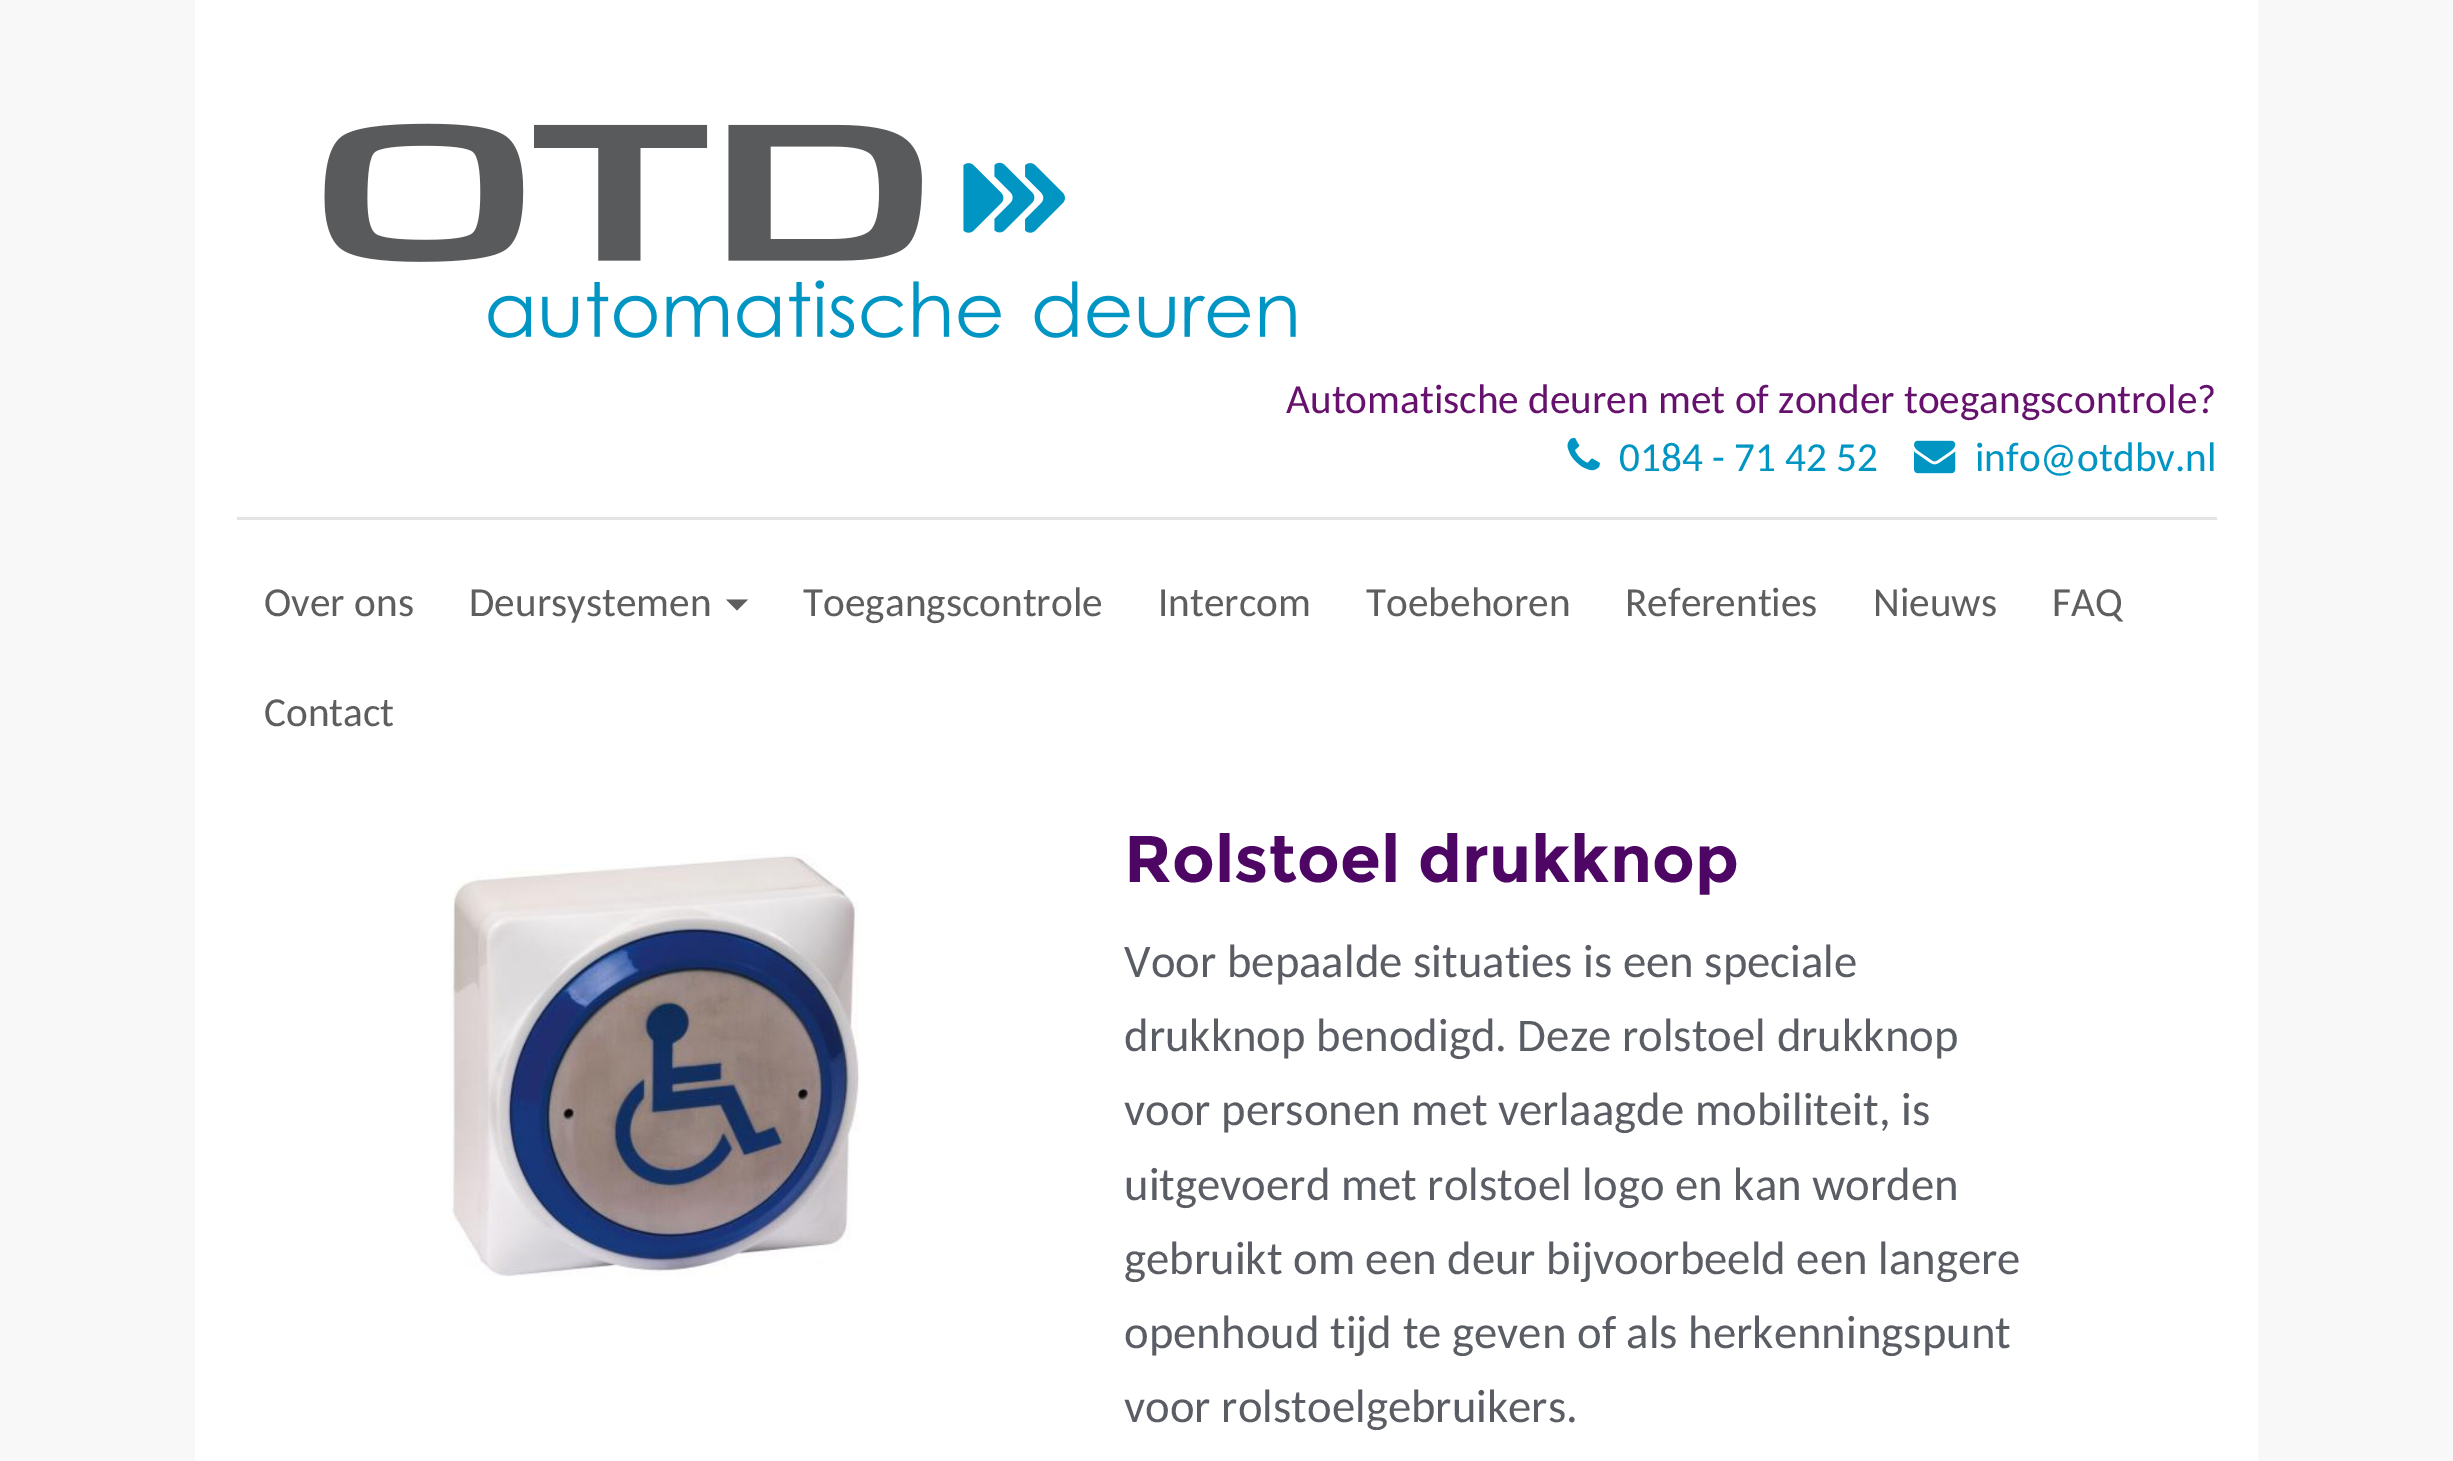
%!PS
<< /PageSize [2453 1461] >> setpagedevice
/rgb { 3 { 255 div 3 1 roll } repeat setrgbcolor } def
/font { [ exch dup neg 0 0 3 -1 roll 0 0 ] selectfont } def
/text { moveto show } def
/picture { 5 dict begin { /h /w /y /x /name } { exch def } forall
  gsave x y translate w h scale
  w h 8 [w 0 0 h 0 0] name (r) file false 3 colorimage grestore end } def
0 1461 translate 1 -1 scale
4 setmiterlimit
248 248 248 rgb
0 0 2453 1461 rectfill
255 255 255 rgb
195 0 2063 1461 rectfill
(img_01.rgb) 324 123 972 215 picture
228 228 228 rgb
237 517 1980 3 rectfill
(img_02.rgb) 1567 437 33 34 picture
(img_03.rgb) 1914 440 42 34 picture
94 94 94 rgb
726 599.5 moveto 22 0 rlineto -11 11 rlineto closepath fill
(img_04.rgb) 450 854 410 423 picture
/Carlito-Regular 41.25 font
102 17 109 rgb
(Automatische deuren met of zonder toegangscontrole?) 1286 413 text
0 149 195 rgb
(0184 - 71 42 52) 1619 471 text
(info@otdbv.nl) 1975 471 text
94 94 94 rgb
(Over ons) 264 616 text
(Deursystemen) 469 616 text
(Toegangscontrole) 803 616 text
(Intercom) 1158 616 text
(Toebehoren) 1366 616 text
(Referenties) 1625 616 text
(Nieuws) 1873 616 text
(FAQ) 2052 616 text
(Contact) 264 726 text
/Montserrat-Bold 66 font
77 6 100 rgb
(Rolstoel drukknop) 1124 882 text
/Carlito-Regular 46.75 font
90 93 100 rgb
(Voor bepaalde situaties is een speciale) 1124 977 text
(drukknop benodigd. Deze rolstoel drukknop) 1124 1051 text
(voor personen met verlaagde mobiliteit, is) 1124 1125 text
(uitgevoerd met rolstoel logo en kan worden) 1124 1200 text
(gebruikt om een deur bijvoorbeeld een langere) 1124 1274 text
(openhoud tijd te geven of als herkenningspunt) 1124 1348 text
(voor rolstoelgebruikers.) 1124 1422 text
showpage
